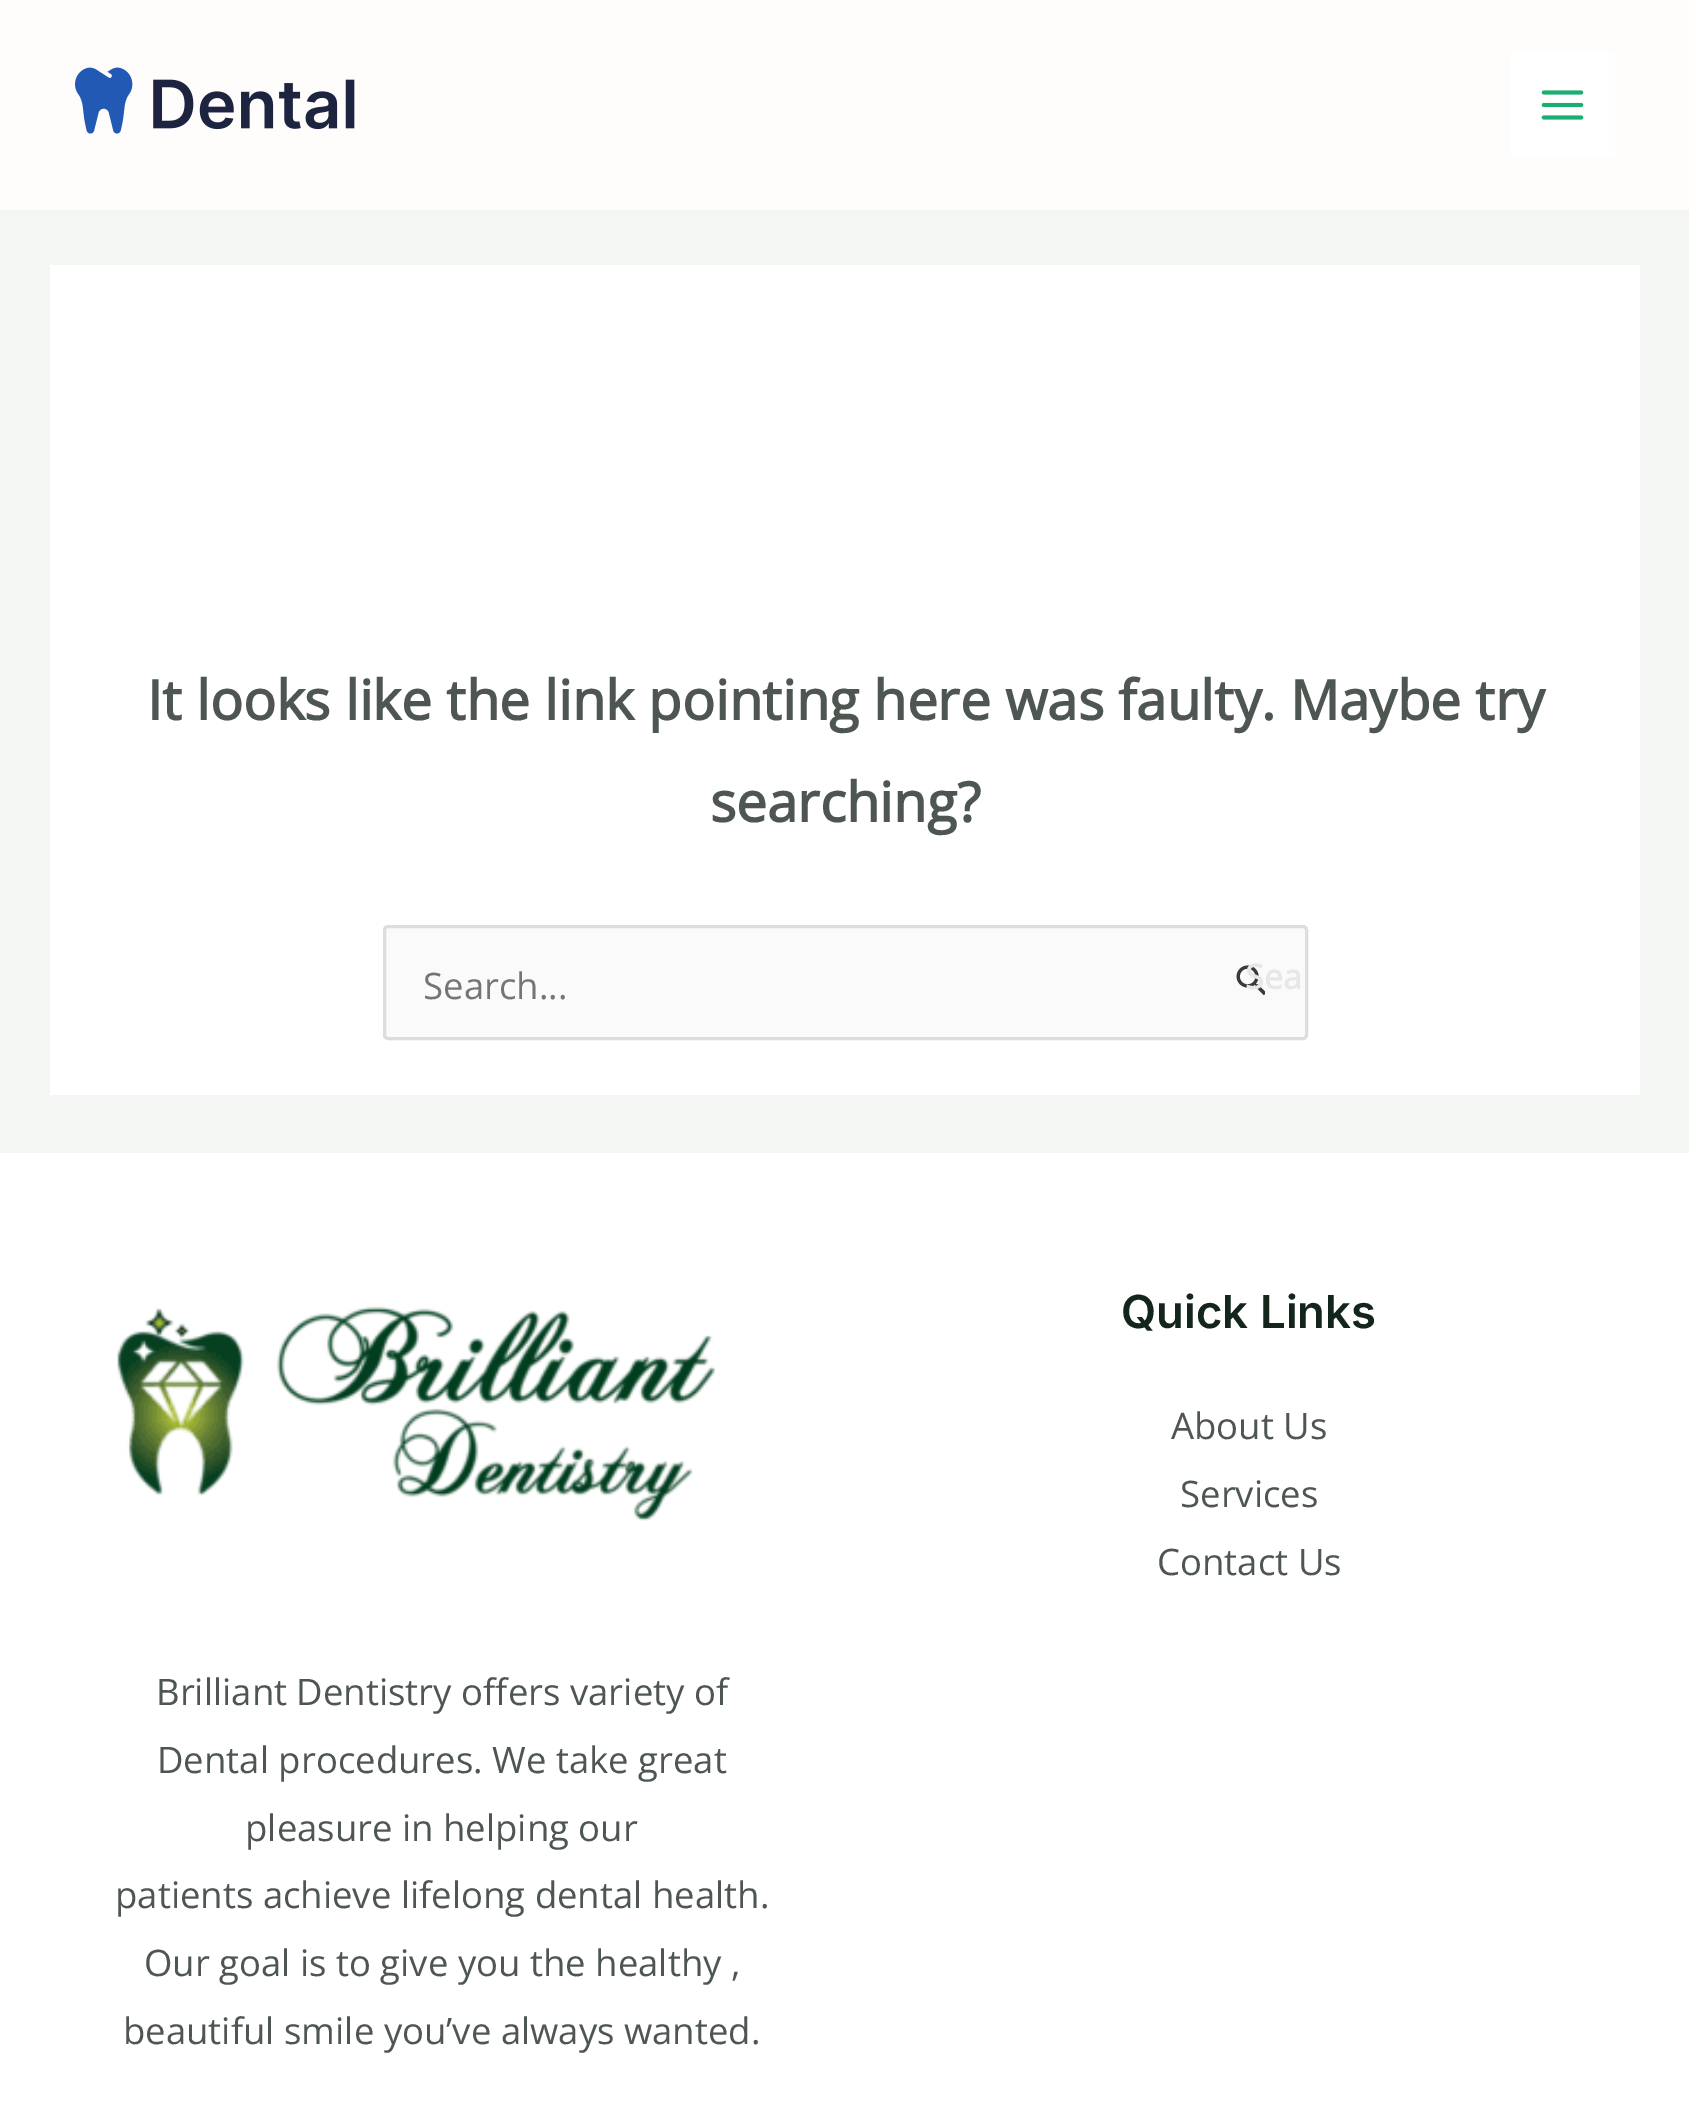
%!PS
<< /PageSize [1689 2114] >> setpagedevice
/rgb { 3 { 255 div 3 1 roll } repeat setrgbcolor } def
/font { [ exch dup neg 0 0 3 -1 roll 0 0 ] selectfont } def
/text { moveto show } def
/roundrect { 5 dict begin { /r /h /w /y /x } { exch def } forall
  x r add y moveto x w add y 2 copy h add r arct x w add y h add x 1 index r arct
  x y h add x y r arct x y 2 copy exch w add exch r arct closepath end } def
/picture { 5 dict begin { /h /w /y /x /name } { exch def } forall
  gsave x y translate w h scale
  w h 8 [w 0 0 h 0 0] name (r) file false 3 colorimage grestore end } def
0 2114 translate 1 -1 scale
4 setmiterlimit
244 246 244 rgb
0 0 1689 2114 rectfill
255 252 252 rgb
0 0 1689 210 rectfill
(img_01.rgb) 75 67 280 67 picture
255 255 255 rgb
1510 53 105 105 5 roundrect fill
(img_02.rgb) 1541 90 43 30 picture
50 265 1590 830 rectfill
250 250 250 rgb
384.5 926.5 922 112 3.5 roundrect gsave fill grestore
221 221 221 rgb
3 setlinewidth
stroke
(img_03.rgb) 1236 965 29 31 picture
255 255 255 rgb
0 1153 1689 961 rectfill
(img_04.rgb) 117 1306 598 215 picture
/OpenSans-Bold 54.75 font
78 86 82 rgb
(It looks like the link pointing here was faulty. Maybe try) 147 720 text
(searching?) 710 822 text
/OpenSans-Regular 36.5 font
117 117 117 rgb
(Search...) 423 999 text
/OpenSans-Bold 34 font
231 231 231 rgb
(Sea) 1245 989 text
/Inter-SemiBold 45.5 font
20 38 28 rgb
(Quick Links) 1121 1328 text
/OpenSans-Regular 36.5 font
78 86 82 rgb
(About Us) 1171 1439 text
(Services) 1180 1507 text
(Contact Us) 1157 1575 text
(Brilliant Dentistry offers variety of) 156 1705 text
(Dental procedures. We take great) 157 1773 text
(pleasure in helping our) 245 1841 text
(patients achieve lifelong dental health.) 115 1908 text
(Our goal is to give you the healthy ,) 144 1976 text
(beautiful smile you’ve always wanted.) 123 2044 text
showpage
